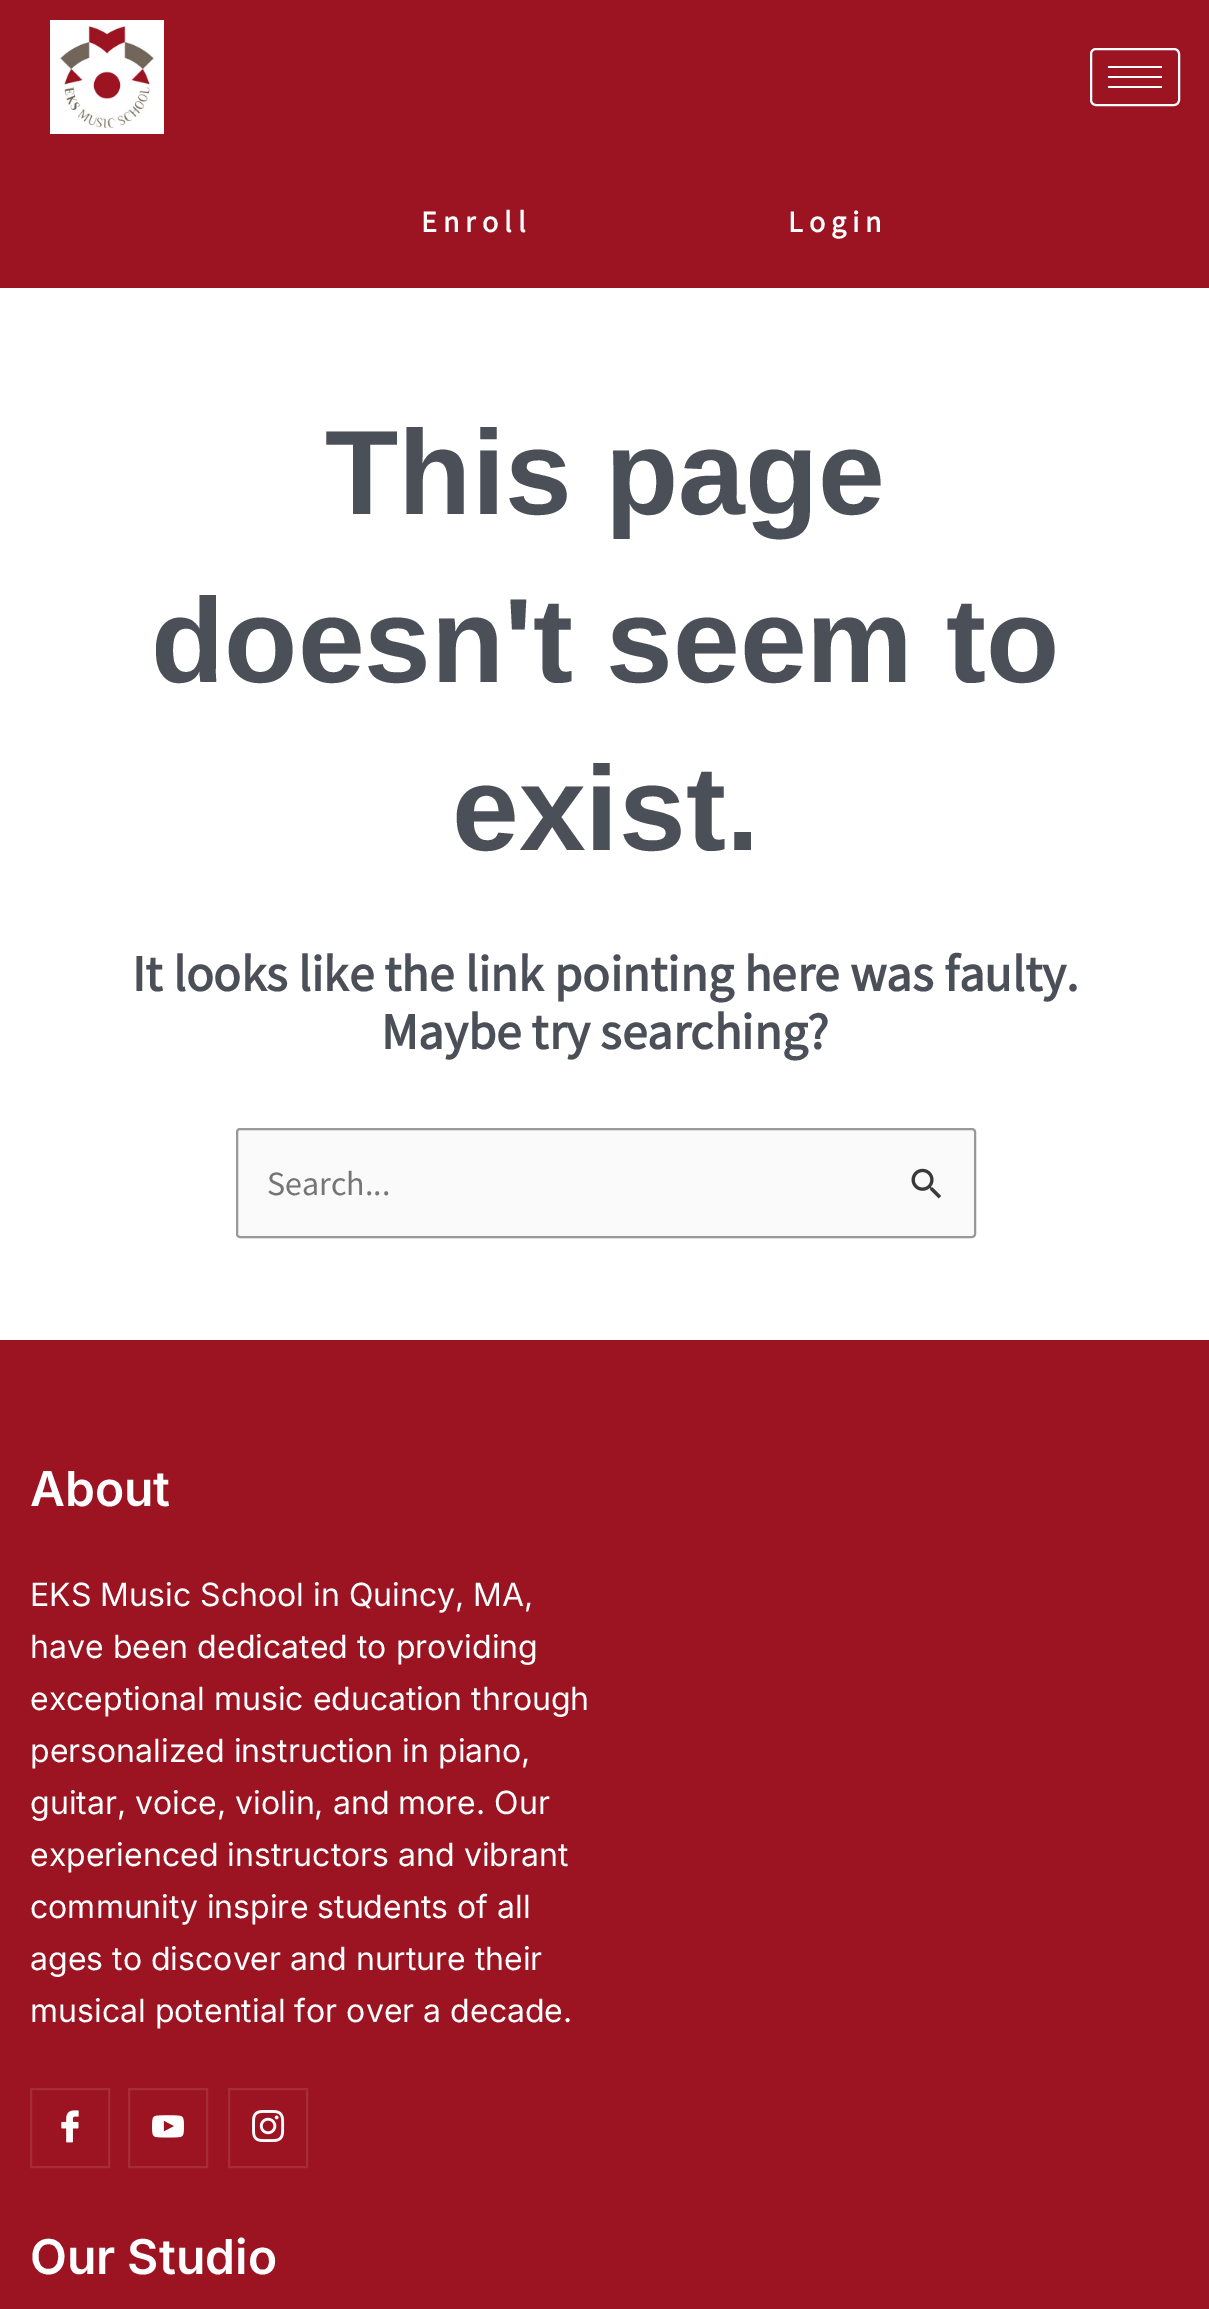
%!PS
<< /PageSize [1209 2309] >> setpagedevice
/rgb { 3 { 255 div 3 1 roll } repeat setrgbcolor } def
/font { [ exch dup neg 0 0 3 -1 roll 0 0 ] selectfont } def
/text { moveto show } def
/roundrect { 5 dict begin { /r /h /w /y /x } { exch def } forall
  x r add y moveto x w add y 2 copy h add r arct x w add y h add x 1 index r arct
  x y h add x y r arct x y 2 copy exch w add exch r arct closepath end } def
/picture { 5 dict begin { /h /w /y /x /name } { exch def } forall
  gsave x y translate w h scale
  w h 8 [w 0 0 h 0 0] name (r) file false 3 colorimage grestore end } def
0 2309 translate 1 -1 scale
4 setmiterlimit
255 255 255 rgb
0 0 1209 2309 rectfill
156 20 34 rgb
0 0 1209 288 rectfill
(img_01.rgb) 50 20 114 114 picture
255 255 255 rgb
2 setlinewidth
1091 49 88 56 5 roundrect stroke
1108 66 54 2 rectfill
1108 76 54 2 rectfill
1108 86 54 2 rectfill
250 250 250 rgb
237 1129 738 108 3 roundrect gsave fill grestore
152 152 152 rgb
stroke
(img_02.rgb) 911 1168 31 31 picture
156 20 34 rgb
0 1340 1209 969 rectfill
166 44 56 rgb
31 2089 78 78 rectstroke
(img_03.rgb) 61 2110 18 33 picture
129 2089 78 78 rectstroke
(img_04.rgb) 152 2115 32 23 picture
229 2089 78 78 rectstroke
(img_05.rgb) 252 2110 33 32 picture
/SourceSansPro-Bold 30 font
255 255 255 rgb
421 232 moveto 6 0 (Enroll) ashow
788 232 moveto 6 0 (Login) ashow
/LiberationSans-Bold 120 font
75 79 88 rgb
(This page) 325 514 text
(doesn't seem to) 151 682 text
(exist.) 452 850 text
/SourceSansPro-Bold 51 font
(It looks like the link pointing here was faulty.) 132 991 text
(Maybe try searching?) 381 1049 text
/SourceSansPro-Regular 34 font
117 117 117 rgb
(Search...) 267 1195 text
/Inter-SemiBold 48 font
255 255 255 rgb
(About) 30 1506 text
/Inter-Regular 32 font
(EKS Music School in Quincy, MA,) 30 1606 text
(have been dedicated to providing) 30 1658 text
(exceptional music education through) 30 1710 text
(personalized instruction in piano,) 30 1762 text
(guitar, voice, violin, and more. Our) 30 1814 text
(experienced instructors and vibrant) 30 1866 text
(community inspire students of all) 30 1918 text
(ages to discover and nurture their) 30 1970 text
(musical potential for over a decade.) 30 2022 text
/Inter-SemiBold 48 font
(Our Studio) 30 2274 text
showpage
